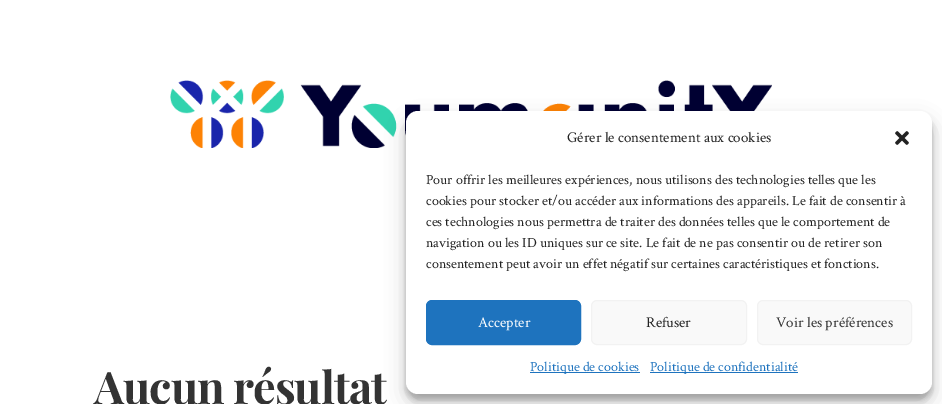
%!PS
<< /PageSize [942 404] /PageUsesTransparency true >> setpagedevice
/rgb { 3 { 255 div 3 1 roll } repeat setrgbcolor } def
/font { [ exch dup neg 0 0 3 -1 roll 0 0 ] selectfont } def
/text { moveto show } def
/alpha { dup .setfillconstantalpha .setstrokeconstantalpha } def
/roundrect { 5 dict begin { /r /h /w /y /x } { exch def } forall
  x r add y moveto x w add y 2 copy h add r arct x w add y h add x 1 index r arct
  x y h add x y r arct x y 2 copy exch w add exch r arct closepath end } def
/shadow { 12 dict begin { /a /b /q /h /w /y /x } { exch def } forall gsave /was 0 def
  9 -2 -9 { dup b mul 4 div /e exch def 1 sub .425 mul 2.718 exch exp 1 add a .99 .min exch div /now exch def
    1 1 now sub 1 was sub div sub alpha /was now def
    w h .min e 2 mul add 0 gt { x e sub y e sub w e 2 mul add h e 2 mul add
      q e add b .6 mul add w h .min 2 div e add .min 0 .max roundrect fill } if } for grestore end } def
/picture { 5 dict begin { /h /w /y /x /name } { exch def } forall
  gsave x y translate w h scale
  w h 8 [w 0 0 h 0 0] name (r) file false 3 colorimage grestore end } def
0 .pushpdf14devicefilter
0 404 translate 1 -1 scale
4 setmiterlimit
255 255 255 rgb
0 0 942 404 rectfill
(img_02.rgb) 170 80 602 68 picture
0 0 0 rgb
406 117 526 283 12 3 0.23 shadow
406 121 526 283 12 10 0.19 shadow
255 255 255 rgb
406 111 526 283 12 roundrect fill
(img_01.rgb) 895 131 14 14 picture
30 115 190 rgb
426.5 300.5 154 44 5.5 roundrect gsave fill grestore
stroke
249 249 249 rgb
591.5 300.5 155 44 5.5 roundrect gsave fill grestore
242 242 242 rgb
stroke
249 249 249 rgb
757.5 300.5 154 44 5.5 roundrect gsave fill grestore
242 242 242 rgb
stroke
30 115 190 rgb
530 372 110 1 rectfill
650 372 148 1 rectfill
/CrimsonText-Regular 15 font
34 34 34 rgb
(Gérer le consentement aux cookies) 567 142 text
/CrimsonText-Regular 14 font
(Pour offrir les meilleures expériences, nous utilisons des technologies telles que les) 426 184 text
(cookies pour stocker et/ou accéder aux informations des appareils. Le fait de consentir à) 426 205 text
(ces technologies nous permettra de traiter des données telles que le comportement de) 426 226 text
(navigation ou les ID uniques sur ce site. Le fait de ne pas consentir ou de retirer son) 426 247 text
(consentement peut avoir un effet négatif sur certaines caractéristiques et fonctions.) 426 268 text
/CrimsonText-Regular 15 font
255 255 255 rgb
(Accepter) 478 327 text
34 34 34 rgb
(Refuser) 646 327 text
51 51 51 rgb
(Voir les préférences) 776 327 text
/CrimsonText-Regular 14 font
30 115 190 rgb
(Politique de cookies) 530 371 text
(Politique de confidentialité) 650 371 text
/PlayfairDisplay-Bold 45 font
51 51 51 rgb
94 404 moveto -1 0 (Aucun résultat) ashow
.poppdf14devicefilter showpage
